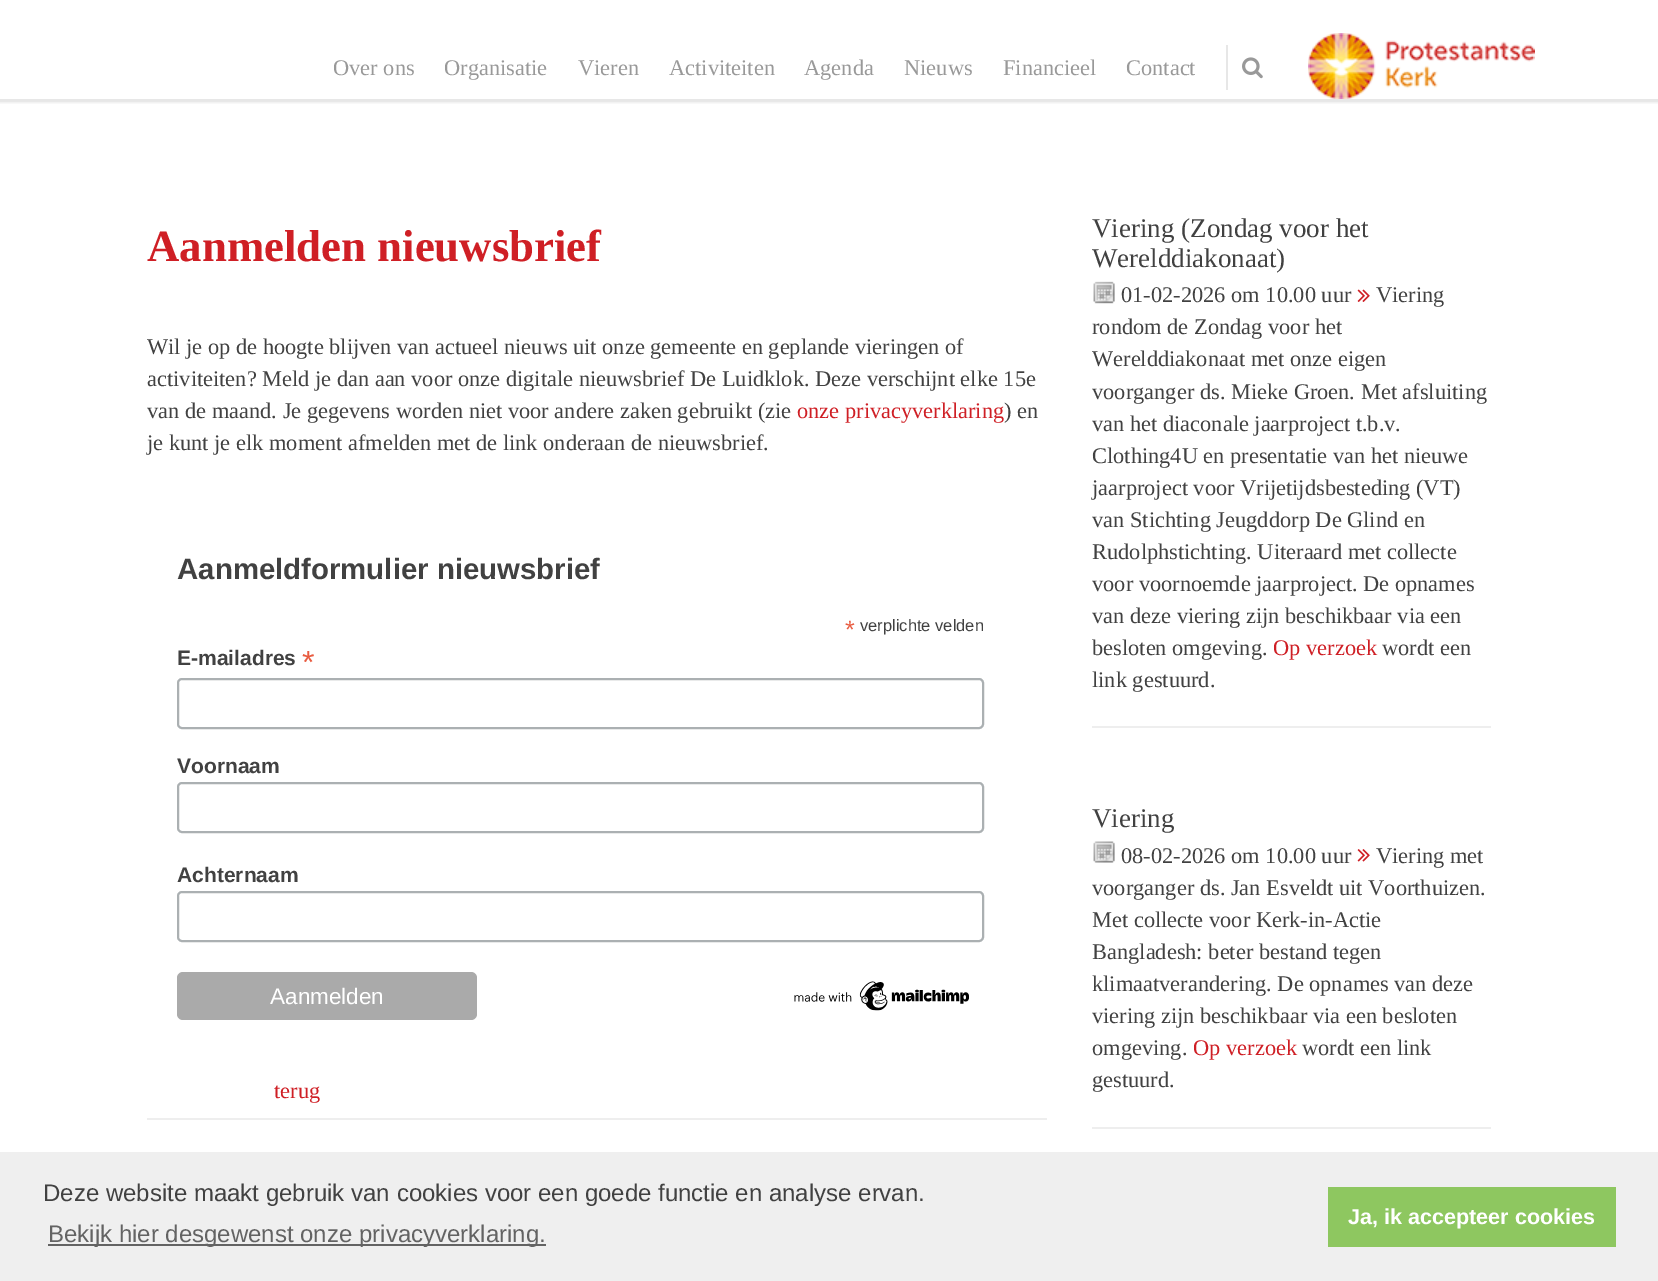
%!PS
<< /PageSize [1658 1281] /PageUsesTransparency true >> setpagedevice
/rgb { 3 { 255 div 3 1 roll } repeat setrgbcolor } def
/font { [ exch dup neg 0 0 3 -1 roll 0 0 ] selectfont } def
/text { moveto show } def
/alpha { dup .setfillconstantalpha .setstrokeconstantalpha } def
/roundrect { 5 dict begin { /r /h /w /y /x } { exch def } forall
  x r add y moveto x w add y 2 copy h add r arct x w add y h add x 1 index r arct
  x y h add x y r arct x y 2 copy exch w add exch r arct closepath end } def
/shadow { 12 dict begin { /a /b /q /h /w /y /x } { exch def } forall gsave /was 0 def
  9 -2 -9 { dup b mul 4 div /e exch def 1 sub .425 mul 2.718 exch exp 1 add a .99 .min exch div /now exch def
    1 1 now sub 1 was sub div sub alpha /was now def
    w h .min e 2 mul add 0 gt { x e sub y e sub w e 2 mul add h e 2 mul add
      q e add b .6 mul add w h .min 2 div e add .min 0 .max roundrect fill } if } for grestore end } def
/picture { 5 dict begin { /h /w /y /x /name } { exch def } forall
  gsave x y translate w h scale
  w h 8 [w 0 0 h 0 0] name (r) file false 3 colorimage grestore end } def
0 .pushpdf14devicefilter
0 1281 translate 1 -1 scale
4 setmiterlimit
255 255 255 rgb
0 0 1658 1281 rectfill
gsave
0 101 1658 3 rectclip
0 0 0 rgb
0 0 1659 101 0 2 0.22 shadow
grestore
231 231 231 rgb
0 99 1658 2 rectfill
1226 45 2 45 rectfill
(img_01.rgb) 1242 57 21 22 picture
(img_02.rgb) 1308 33 227 66 picture
238 238 238 rgb
147 1118 900 2 rectfill
171 176 178 rgb
2 setlinewidth
178 679 805 49 4 roundrect stroke
178 783 805 49 4 roundrect stroke
178 892 805 49 4 roundrect stroke
170 170 170 rgb
177 972 300 48 6 roundrect fill
(img_03.rgb) 794 981 175 30 picture
(img_04.rgb) 1093 281 22 23 picture
(img_05.rgb) 1357 289 13 13 picture
238 238 238 rgb
1092 726 399 2 rectfill
(img_06.rgb) 1093 841 22 22 picture
(img_07.rgb) 1357 849 13 13 picture
1092 1127 399 2 rectfill
239 239 239 rgb
0 1152 1658 129 rectfill
99 99 99 rgb
48 1244 498 2 rectfill
142 199 96 rgb
1328 1187 288 60 rectfill
/LiberationSerif-Regular 22.4 font
153 153 153 rgb
(Over ons) 333 75 text
(Organisatie) 444 75 text
(Vieren) 578 75 text
(Activiteiten) 669 75 text
(Agenda) 804 75 text
(Nieuws) 904 75 text
(Financieel) 1003 75 text
(Contact) 1126 75 text
/LiberationSerif-Bold 44.8 font
207 31 37 rgb
(Aanmelden nieuwsbrief) 147 261 text
/LiberationSerif-Regular 22.4 font
65 65 65 rgb
(Wil je op de hoogte blijven van actueel nieuws uit onze gemeente en geplande vieringen of) 147 354 text
(activiteiten? Meld je dan aan voor onze digitale nieuwsbrief De Luidklok. Deze verschijnt elke 15e) 147 386 text
(van de maand. Je gegevens worden niet voor andere zaken gebruikt \(zie) 147 418 text
207 31 37 rgb
(onze privacyverklaring) 797 418 text
65 65 65 rgb
(\) en) 1004 418 text
(je kunt je elk moment afmelden met de link onderaan de nieuwsbrief.) 147 450 text
/LiberationSans-Bold 29.4 font
(Aanmeldformulier nieuwsbrief) 177 579 text
/LiberationSans-Regular 25 font
232 92 65 rgb
(*) 845 638 text
/LiberationSans-Regular 16.5 font
65 65 65 rgb
(verplichte velden) 860 631 text
/LiberationSans-Bold 21 font
(E-mailadres) 177 665 text
/LiberationSans-Regular 32 font
232 92 65 rgb
(*) 302 673 text
/LiberationSans-Bold 21 font
65 65 65 rgb
(Voornaam) 177 773 text
(Achternaam) 177 882 text
/LiberationSans-Regular 22.5 font
255 255 255 rgb
(Aanmelden) 270 1004 text
/LiberationSerif-Regular 22.4 font
207 31 37 rgb
(terug) 274 1098 text
/LiberationSerif-Regular 27 font
65 65 65 rgb
(Viering \(Zondag voor het) 1092 237 text
(Werelddiakonaat\)) 1092 267 text
/LiberationSerif-Regular 22.4 font
(01-02-2026 om 10.00 uur) 1121 302 text
(Viering) 1376 302 text
(rondom de Zondag voor het) 1092 334 text
(Werelddiakonaat met onze eigen) 1092 366 text
(voorganger ds. Mieke Groen. Met afsluiting) 1092 399 text
(van het diaconale jaarproject t.b.v.) 1092 431 text
(Clothing4U en presentatie van het nieuwe) 1092 463 text
(jaarproject voor Vrijetijdsbesteding \(VT\)) 1092 495 text
(van Stichting Jeugddorp De Glind en) 1092 527 text
(Rudolphstichting. Uiteraard met collecte) 1092 559 text
(voor voornoemde jaarproject. De opnames) 1092 591 text
(van deze viering zijn beschikbaar via een) 1092 623 text
(besloten omgeving.) 1092 655 text
207 31 37 rgb
(Op verzoek) 1273 655 text
65 65 65 rgb
(wordt een) 1382 655 text
(link gestuurd.) 1092 687 text
/LiberationSerif-Regular 27 font
(Viering) 1092 827 text
/LiberationSerif-Regular 22.4 font
(08-02-2026 om 10.00 uur) 1121 863 text
(Viering met) 1376 863 text
(voorganger ds. Jan Esveldt uit Voorthuizen.) 1092 895 text
(Met collecte voor Kerk-in-Actie) 1092 927 text
(Bangladesh: beter bestand tegen) 1092 959 text
(klimaatverandering. De opnames van deze) 1092 991 text
(viering zijn beschikbaar via een besloten) 1092 1023 text
(omgeving.) 1092 1055 text
207 31 37 rgb
(Op verzoek) 1193 1055 text
65 65 65 rgb
(wordt een link) 1302 1055 text
(gestuurd.) 1092 1087 text
/LiberationSans-Regular 24 font
(Deze website maakt gebruik van cookies voor een goede functie en analyse ervan.) 43 1201 text
99 99 99 rgb
(Bekijk hier desgewenst onze privacyverklaring.) 48 1242 text
/LiberationSans-Bold 21.6 font
255 255 255 rgb
(Ja, ik accepteer cookies) 1348 1224 text
.poppdf14devicefilter showpage
